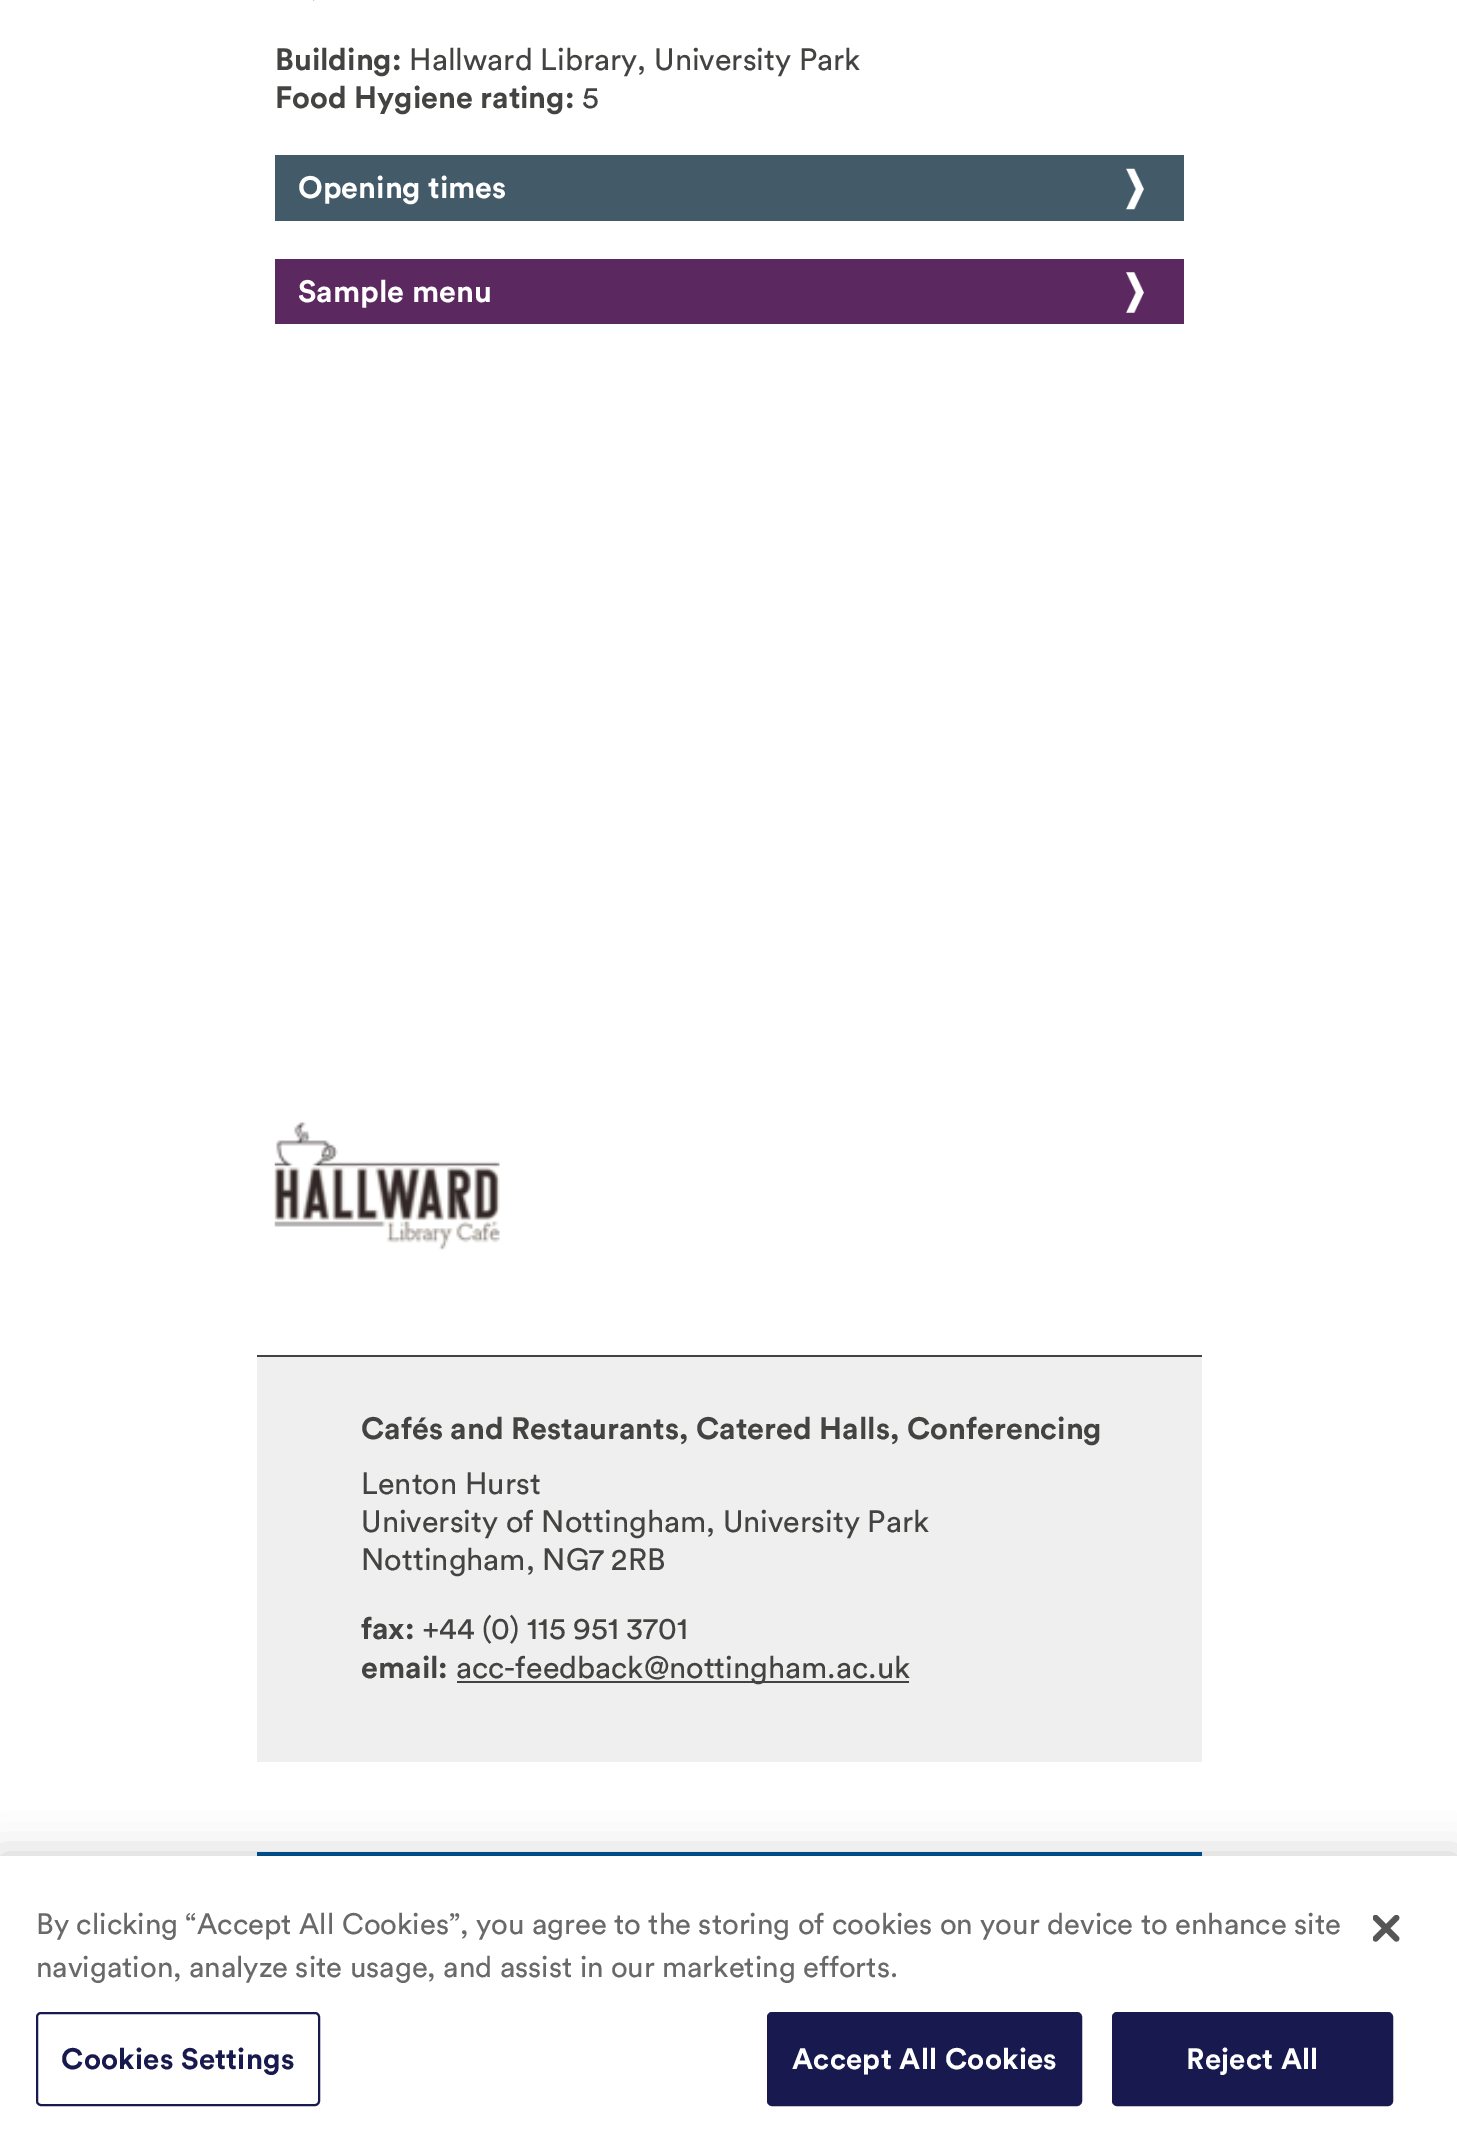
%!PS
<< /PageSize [1457 2149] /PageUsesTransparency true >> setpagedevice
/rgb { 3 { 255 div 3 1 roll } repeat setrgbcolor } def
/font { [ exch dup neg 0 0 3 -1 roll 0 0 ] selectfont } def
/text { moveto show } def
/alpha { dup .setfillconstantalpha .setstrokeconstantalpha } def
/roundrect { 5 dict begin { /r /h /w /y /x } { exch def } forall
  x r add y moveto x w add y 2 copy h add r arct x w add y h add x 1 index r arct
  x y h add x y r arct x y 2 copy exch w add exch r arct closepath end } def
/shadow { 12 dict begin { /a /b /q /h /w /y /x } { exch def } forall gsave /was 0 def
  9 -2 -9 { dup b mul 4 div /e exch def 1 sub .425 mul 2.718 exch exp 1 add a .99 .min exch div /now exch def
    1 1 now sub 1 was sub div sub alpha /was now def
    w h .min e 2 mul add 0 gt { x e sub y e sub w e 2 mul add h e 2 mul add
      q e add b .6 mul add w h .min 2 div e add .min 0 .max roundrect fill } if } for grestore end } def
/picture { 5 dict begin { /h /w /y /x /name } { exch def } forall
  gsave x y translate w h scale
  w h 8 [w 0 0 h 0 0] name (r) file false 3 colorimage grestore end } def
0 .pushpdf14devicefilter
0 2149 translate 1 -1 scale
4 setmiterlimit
255 255 255 rgb
0 0 1457 2149 rectfill
(img_01.rgb) 313 0 2 1 picture
67 90 105 rgb
275 155 909 66 rectfill
(img_02.rgb) 1126 168 18 42 picture
91 41 96 rgb
275 259 909 65 rectfill
(img_03.rgb) 1126 272 18 41 picture
(img_04.rgb) 274 1122 226 128 picture
239 239 239 rgb
257 1357 945 405 rectfill
67 67 65 rgb
257 1355 945 2 rectfill
457 1681 452 2 rectfill
0 85 151 rgb
257 1852 945 4 rectfill
0 0 0 rgb
0 1856 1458 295 0 20 0.2 shadow
255 255 255 rgb
0 1856 1457 293 rectfill
24 25 79 rgb
2 setlinewidth
37 2013 282 92 4 roundrect stroke
768 2013 313 92 4 roundrect gsave fill grestore
stroke
1113 2013 279 92 4 roundrect gsave fill grestore
stroke
(img_05.rgb) 1373 1915 27 27 picture
/Circular-Bold 30.6 font
67 67 65 rgb
(Building:) 275 70 text
/Circular-Regular 30.6 font
(Hallward Library, University Park) 409 70 text
/Circular-Bold 30.6 font
(Food Hygiene rating:) 275 108 text
/Circular-Regular 30.6 font
(5) 582 108 text
/Circular-Bold 30.6 font
255 255 255 rgb
(Opening times) 298 198 text
(Sample menu) 298 302 text
67 67 65 rgb
(Cafés and Restaurants, Catered Halls, Conferencing) 361 1439 text
/Circular-Regular 30.6 font
(Lenton Hurst) 361 1494 text
(University of Nottingham, University Park) 361 1532 text
(Nottingham, NG7 2RB) 361 1570 text
/Circular-Bold 30.6 font
(fax:) 361 1639 text
/Circular-Regular 30.6 font
(+44 \(0\) 115 951 3701) 422 1639 text
/Circular-Bold 30.6 font
(email:) 361 1678 text
/Circular-Regular 30.6 font
(acc-feedback@nottingham.ac.uk) 456 1678 text
/Circular-Regular 29.25 font
105 105 105 rgb
(By clicking “Accept All Cookies”, you agree to the storing of cookies on your device to enhance site) 36 1934 text
(navigation, analyze site usage, and assist in our marketing efforts.) 36 1977 text
/Circular-Bold 29.25 font
24 25 79 rgb
61 2069 moveto 0.25 0 (Cookies Settings) ashow
255 255 255 rgb
792 2069 moveto 0.25 0 (Accept All Cookies) ashow
1186 2069 moveto 0.25 0 (Reject All) ashow
.poppdf14devicefilter showpage
